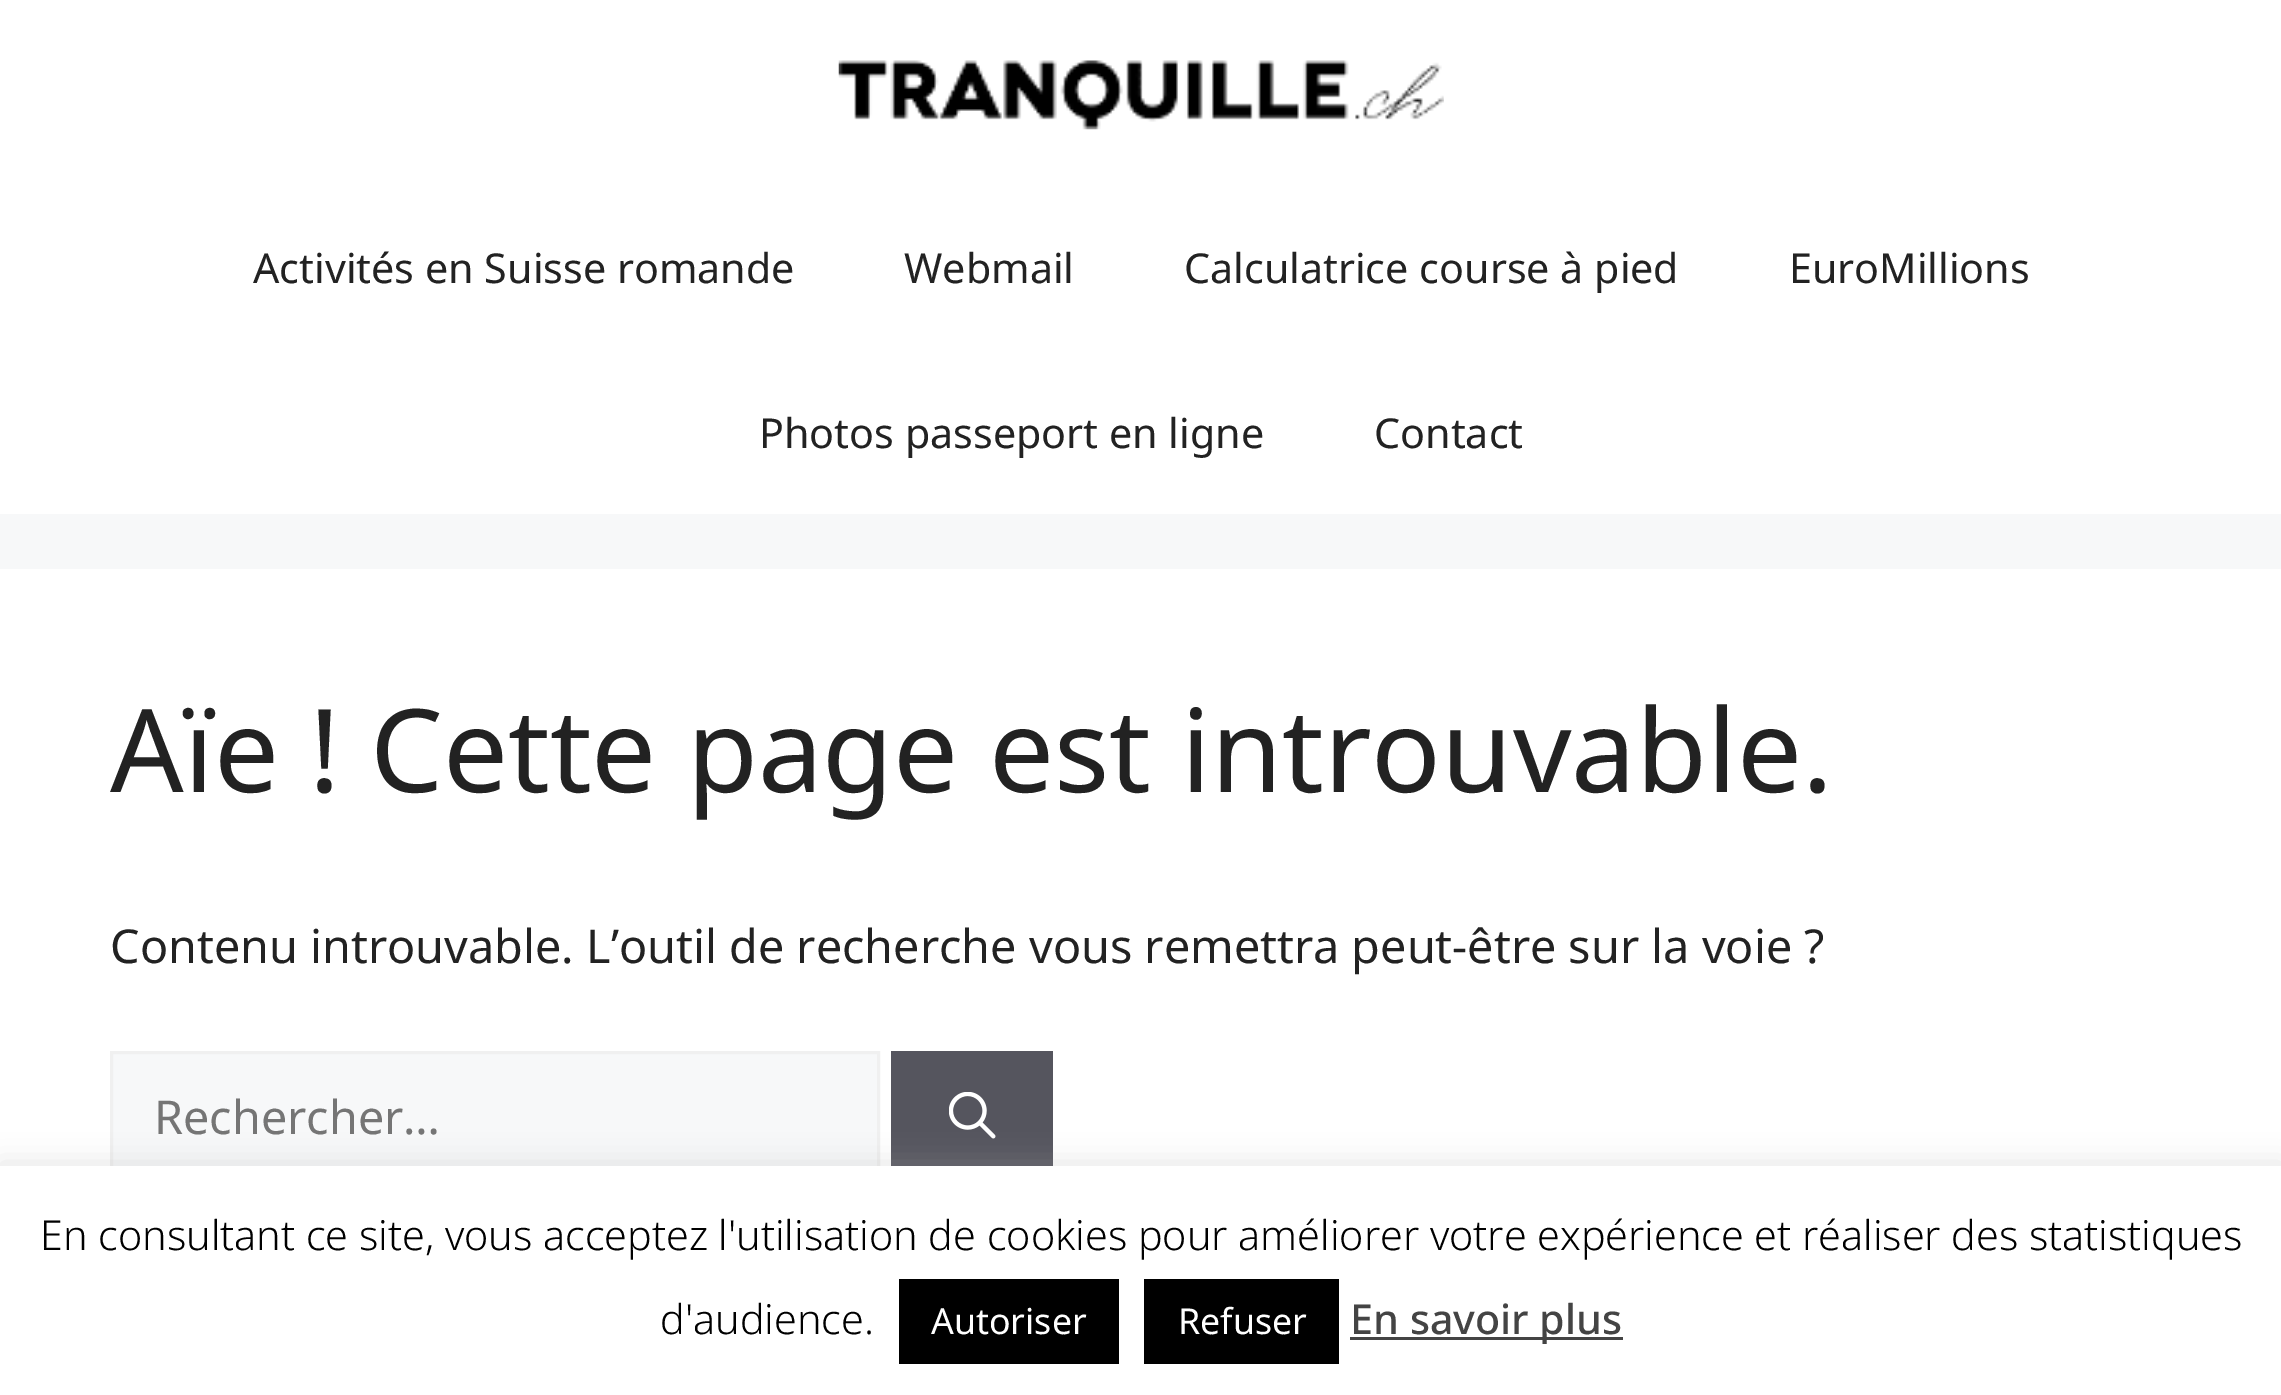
%!PS
<< /PageSize [2281 1395] /PageUsesTransparency true >> setpagedevice
/rgb { 3 { 255 div 3 1 roll } repeat setrgbcolor } def
/font { [ exch dup neg 0 0 3 -1 roll 0 0 ] selectfont } def
/text { moveto show } def
/alpha { dup .setfillconstantalpha .setstrokeconstantalpha } def
/roundrect { 5 dict begin { /r /h /w /y /x } { exch def } forall
  x r add y moveto x w add y 2 copy h add r arct x w add y h add x 1 index r arct
  x y h add x y r arct x y 2 copy exch w add exch r arct closepath end } def
/shadow { 12 dict begin { /a /b /q /h /w /y /x } { exch def } forall gsave /was 0 def
  9 -2 -9 { dup b mul 4 div /e exch def 1 sub .425 mul 2.718 exch exp 1 add a .99 .min exch div /now exch def
    1 1 now sub 1 was sub div sub alpha /was now def
    w h .min e 2 mul add 0 gt { x e sub y e sub w e 2 mul add h e 2 mul add
      q e add b .6 mul add w h .min 2 div e add .min 0 .max roundrect fill } if } for grestore end } def
/picture { 5 dict begin { /h /w /y /x /name } { exch def } forall
  gsave x y translate w h scale
  w h 8 [w 0 0 h 0 0] name (r) file false 3 colorimage grestore end } def
0 .pushpdf14devicefilter
0 1395 translate 1 -1 scale
4 setmiterlimit
247 248 249 rgb
0 0 2281 1395 rectfill
255 255 255 rgb
0 0 2281 514 rectfill
(img_01.rgb) 838 60 606 70 picture
0 569 2281 597 rectfill
247 248 249 rgb
113 1054 764 112 rectfill
240 240 240 rgb
3 setlinewidth
111.5 1052.5 767 129 rectstroke
85 85 94 rgb
891 1051 162 115 rectfill
(img_02.rgb) 949 1092 47 47 picture
172 171 171 rgb
0 1163 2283 231 0 14 0.3 shadow
255 255 255 rgb
0 1166 2281 229 rectfill
0 0 0 rgb
899 1279 220 85 rectfill
1144 1279 195 85 rectfill
68 68 68 rgb
1350 1337 273 3 rectfill
/NotoSans-Regular 41.25 font
34 34 34 rgb
(Activités en Suisse romande) 253 283 text
(Webmail) 904 283 text
(Calculatrice course à pied) 1184 283 text
(EuroMillions) 1789 283 text
(Photos passeport en ligne) 759 448 text
(Contact) 1374 448 text
/NotoSans-Regular 115.5 font
(Aïe ! Cette page est introuvable.) 110 792 text
/NotoSans-Regular 46.75 font
(Contenu introuvable. L’outil de recherche vous remettra peut-être sur la voie ?) 110 963 text
117 117 117 rgb
(Rechercher…) 154 1134 text
/NotoSans-Light 41.25 font
0 0 0 rgb
(En consultant ce site, vous acceptez l'utilisation de cookies pour améliorer votre expérience et réaliser des statistiques) 40 1250 text
(d'audience.) 660 1334 text
/NotoSans-Regular 35.75 font
255 255 255 rgb
(Autoriser) 931 1334 text
(Refuser) 1178 1334 text
/NotoSans-Medium 41.25 font
68 68 68 rgb
(En savoir plus) 1350 1334 text
.poppdf14devicefilter showpage
